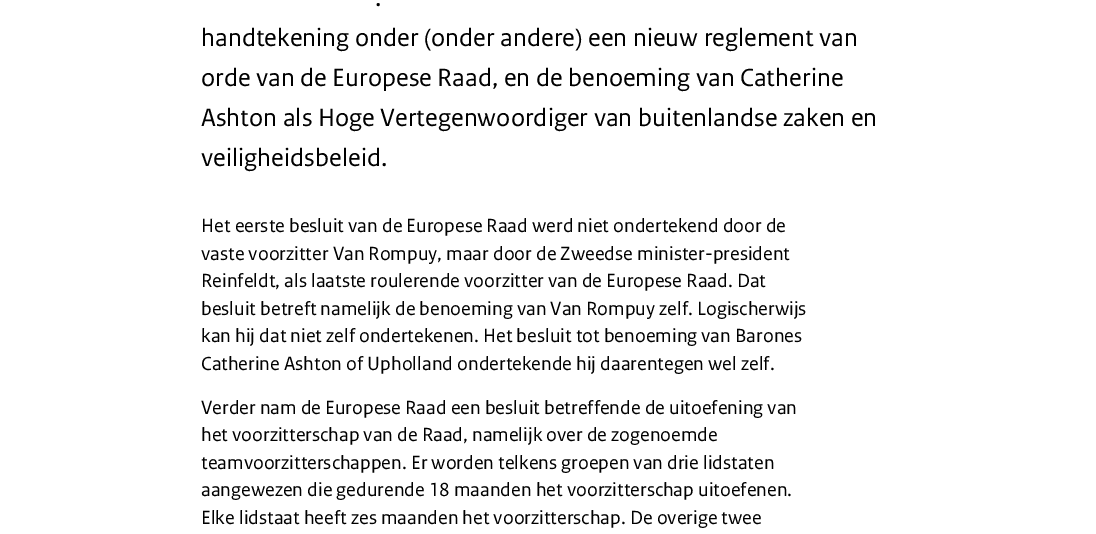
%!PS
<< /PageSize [1096 534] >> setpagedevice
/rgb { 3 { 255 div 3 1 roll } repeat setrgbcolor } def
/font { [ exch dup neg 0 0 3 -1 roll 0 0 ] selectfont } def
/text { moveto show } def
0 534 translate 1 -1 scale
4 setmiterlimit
255 255 255 rgb
0 0 1096 534 rectfill
/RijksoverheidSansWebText-Regular 26.25 font
0 0 0 rgb
(.) 375 6 text
(handtekening onder \(onder andere\) een nieuw reglement van) 201 46 text
(orde van de Europese Raad, en de benoeming van Catherine) 201 86 text
(Ashton als Hoge Vertegenwoordiger van buitenlandse zaken en) 201 126 text
(veiligheidsbeleid.) 201 166 text
/RijksoverheidSansWebText-Regular 20 font
(Het eerste besluit van de Europese Raad werd niet ondertekend door de) 201 232 text
(vaste voorzitter Van Rompuy, maar door de Zweedse minister-president) 201 260 text
(Reinfeldt, als laatste roulerende voorzitter van de Europese Raad. Dat) 201 287 text
(besluit betreft namelijk de benoeming van Van Rompuy zelf. Logischerwijs) 201 315 text
(kan hij dat niet zelf ondertekenen. Het besluit tot benoeming van Barones) 201 342 text
(Catherine Ashton of Upholland ondertekende hij daarentegen wel zelf.) 201 370 text
(Verder nam de Europese Raad een besluit betreffende de uitoefening van) 201 414 text
(het voorzitterschap van de Raad, namelijk over de zogenoemde) 201 441 text
(teamvoorzitterschappen. Er worden telkens groepen van drie lidstaten) 201 469 text
(aangewezen die gedurende 18 maanden het voorzitterschap uitoefenen.) 201 496 text
(Elke lidstaat heeft zes maanden het voorzitterschap. De overige twee) 201 524 text
showpage
